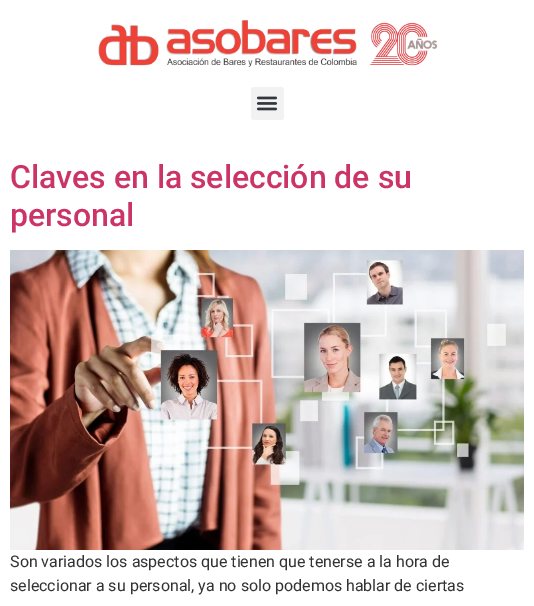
%!PS
<< /PageSize [534 606] >> setpagedevice
/rgb { 3 { 255 div 3 1 roll } repeat setrgbcolor } def
/font { [ exch dup neg 0 0 3 -1 roll 0 0 ] selectfont } def
/text { moveto show } def
/roundrect { 5 dict begin { /r /h /w /y /x } { exch def } forall
  x r add y moveto x w add y 2 copy h add r arct x w add y h add x 1 index r arct
  x y h add x y r arct x y 2 copy exch w add exch r arct closepath end } def
/picture { 5 dict begin { /h /w /y /x /name } { exch def } forall
  gsave x y translate w h scale
  w h 8 [w 0 0 h 0 0] name (r) file false 3 colorimage grestore end } def
0 606 translate 1 -1 scale
4 setmiterlimit
255 255 255 rgb
0 0 534 606 rectfill
(img_01.rgb) 98 20 340 47 picture
242 242 242 rgb
251 87 33 33 3 roundrect fill
(img_02.rgb) 256 96 22 15 picture
(img_03.rgb) 10 250 514 300 picture
/Roboto-Medium 32 font
204 51 102 rgb
(Claves en la selección de su) 10 188 text
(personal) 10 226 text
/Roboto-Regular 16 font
51 51 51 rgb
(Son variados los aspectos que tienen que tenerse a la hora de) 10 567 text
(seleccionar a su personal, ya no solo podemos hablar de ciertas) 10 591 text
showpage
